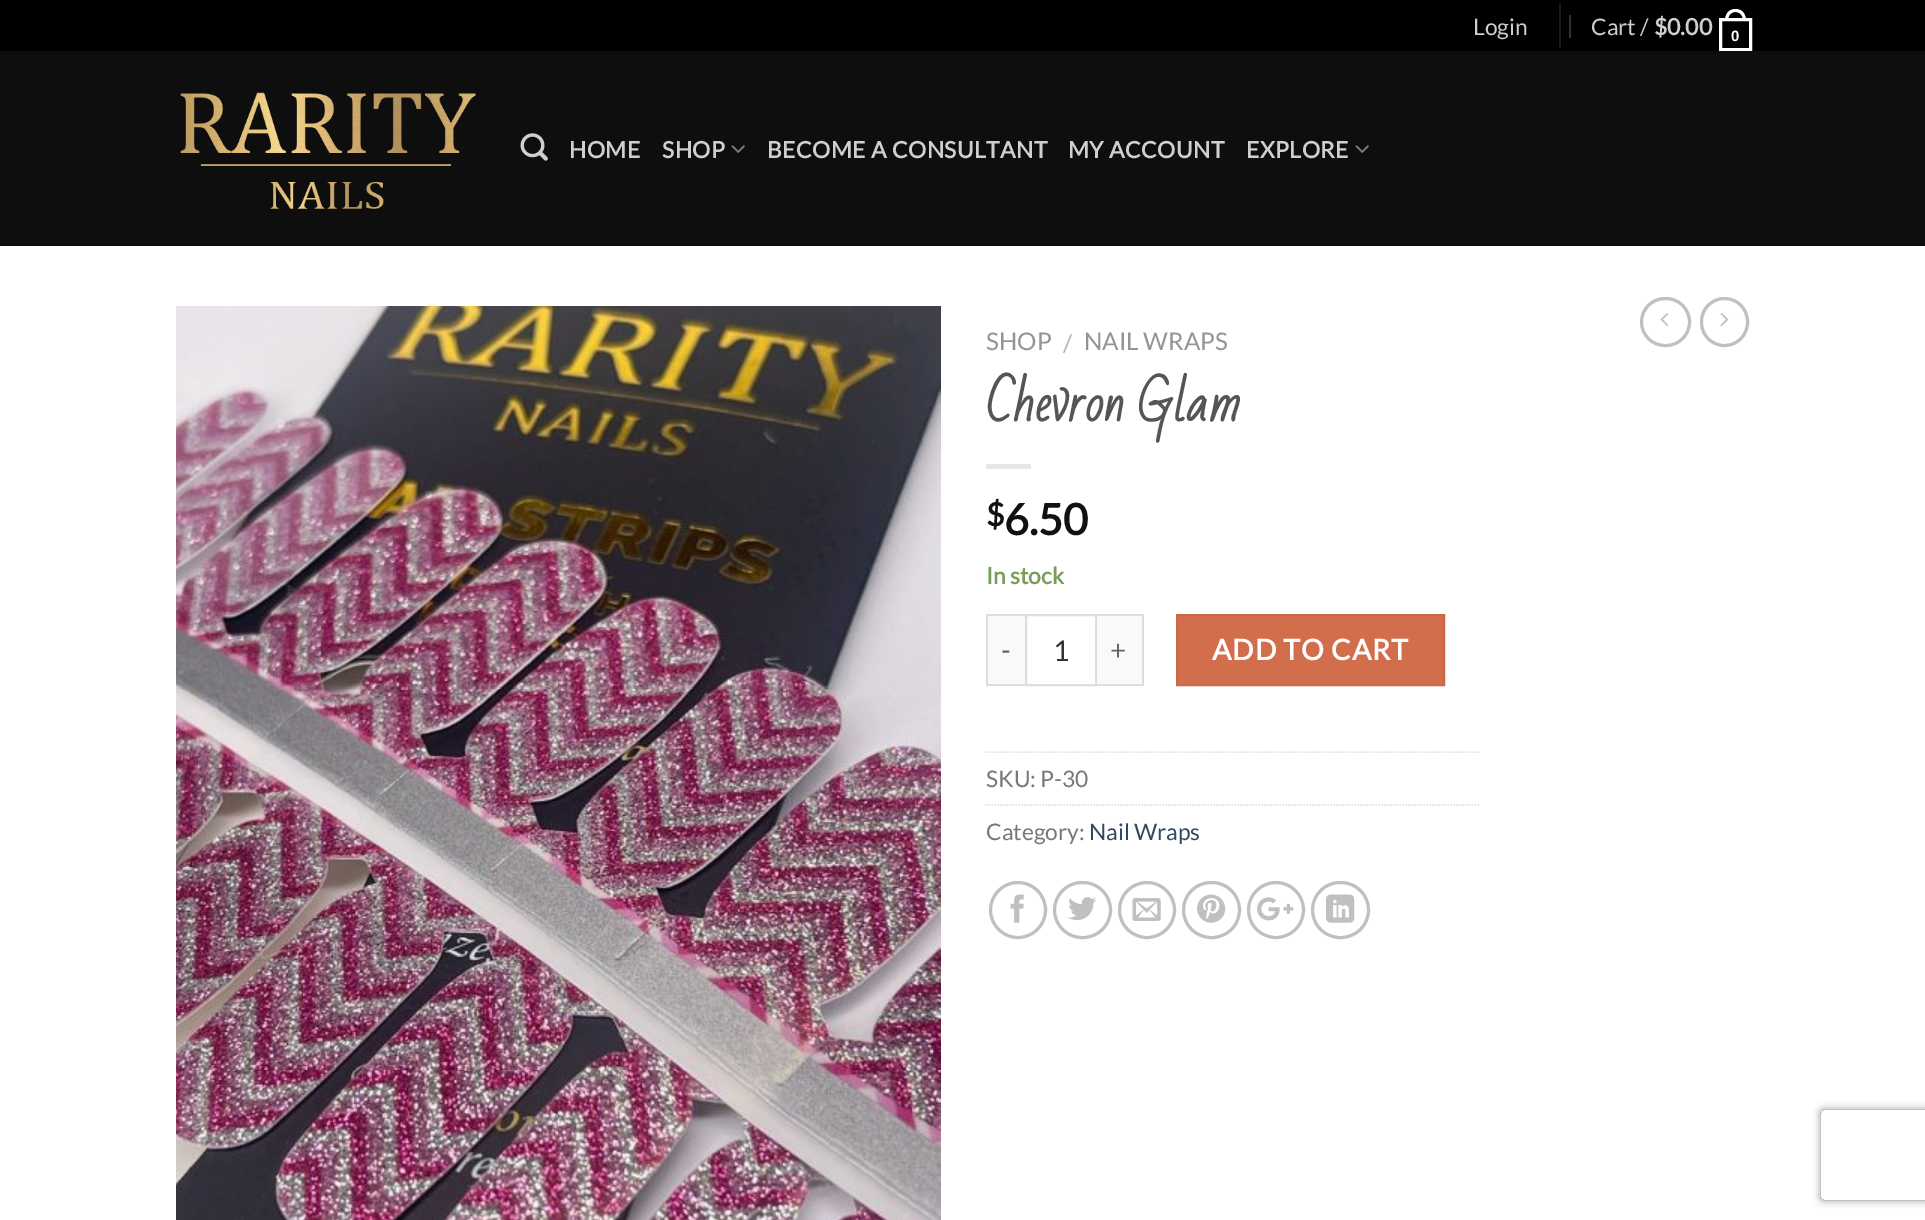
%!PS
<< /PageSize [1925 1220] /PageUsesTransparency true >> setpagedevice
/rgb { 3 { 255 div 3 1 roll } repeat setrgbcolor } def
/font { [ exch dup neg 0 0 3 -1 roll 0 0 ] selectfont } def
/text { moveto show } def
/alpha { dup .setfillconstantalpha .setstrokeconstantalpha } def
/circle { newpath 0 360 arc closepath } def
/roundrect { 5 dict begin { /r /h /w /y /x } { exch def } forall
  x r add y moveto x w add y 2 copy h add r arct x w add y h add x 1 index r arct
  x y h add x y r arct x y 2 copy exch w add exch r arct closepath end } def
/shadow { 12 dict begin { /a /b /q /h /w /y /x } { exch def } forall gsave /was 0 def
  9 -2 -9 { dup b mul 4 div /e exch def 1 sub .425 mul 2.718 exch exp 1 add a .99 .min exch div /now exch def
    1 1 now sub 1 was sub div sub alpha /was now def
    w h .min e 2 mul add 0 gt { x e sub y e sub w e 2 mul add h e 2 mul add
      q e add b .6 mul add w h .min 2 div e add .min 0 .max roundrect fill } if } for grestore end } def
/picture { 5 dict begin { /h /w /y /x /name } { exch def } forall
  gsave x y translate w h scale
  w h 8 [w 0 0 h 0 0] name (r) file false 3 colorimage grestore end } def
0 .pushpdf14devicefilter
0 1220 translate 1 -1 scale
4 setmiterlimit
255 255 255 rgb
0 0 1925 1220 rectfill
0 0 0 rgb
0 0 1925 51 rectfill
26 26 26 rgb
1559 3 2 45 rectfill
51 51 51 rgb
1569 15 2 23 rectfill
255 255 255 rgb
3 setlinewidth
1720.5 19.5 30 30 rectstroke
1735.5 9 moveto 7 0 10.5 5.5 10.5 12 rcurveto -21 0 rlineto 0 -6.5 3.5 -12 10.5 -12 rcurveto closepath 1735.5 12 moveto 5.5 0 7.5 4.5 7.5 9 rcurveto -15 0 rlineto 0 -4.5 2 -9 7.5 -9 rcurveto closepath eofill
14 14 14 rgb
0 51 1925 195 rectfill
(img_01.rgb) 180 92 296 117 picture
(img_02.rgb) 520 133 28 28 picture
(img_03.rgb) 731 145 14 8 picture
(img_03.rgb) 1355 145 14 8 picture
(img_04.rgb) 176 306 765 914 picture
230 230 230 rgb
986 464 45 5 rectfill
249 249 249 rgb
988 616 37 68 rectfill
221 221 221 rgb
986 614 39 2 rectfill
986 684 39 2 rectfill
986 614 2 72 rectfill
2 setlinewidth
1026 615 70 70 rectstroke
249 249 249 rgb
1097 616 45 68 rectfill
221 221 221 rgb
1097 614 46 2 rectfill
1142 614 2 72 rectfill
1097 684 46 2 rectfill
210 110 75 rgb
1177 615 moveto 267 0 rlineto 0 70 rlineto -267 0 rlineto closepath gsave fill grestore
200 105 71 rgb
stroke
221 221 221 rgb
1.5 setlinewidth
[1.5 1.5] 0 setdash
985.5 752 moveto 495 0 rlineto stroke
985.5 805 moveto 495 0 rlineto stroke
192 192 192 rgb
3 setlinewidth
[] 0 setdash
1018 910 27.5 circle stroke
(img_05.rgb) 1010 894 14 29 picture
1054.5 882.5 56 55 27.5 roundrect stroke
(img_06.rgb) 1068 897 28 24 picture
1147 910 27.5 circle stroke
(img_07.rgb) 1132 898 29 23 picture
1183.5 882.5 56 55 27.5 roundrect stroke
(img_08.rgb) 1197 894 29 29 picture
1276 910 27.5 circle stroke
(img_09.rgb) 1257 897 37 24 picture
1312.5 882.5 56 55 27.5 roundrect stroke
(img_10.rgb) 1326 894 29 29 picture
1641.5 298.5 48 47 23.5 roundrect stroke
(img_11.rgb) 1660 313 9 13 picture
1701.5 298.5 46 47 23 roundrect stroke
(img_12.rgb) 1720 313 9 14 picture
gsave
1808 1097 moveto 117 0 rlineto 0 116 rlineto -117 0 rlineto closepath 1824 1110 moveto 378 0 rlineto 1.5 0 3 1.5 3 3 rcurveto 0 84 rlineto 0 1.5 -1.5 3 -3 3 rcurveto -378 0 rlineto -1.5 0 -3 -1.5 -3 -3 rcurveto 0 -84 rlineto 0 -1.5 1.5 -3 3 -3 rcurveto closepath eoclip newpath
128 128 128 rgb
1821 1110 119 90 3 4 1 shadow
grestore
/Lato-Regular 22.8 font
207 207 207 rgb
(Login) 1473 35 text
(Cart /) 1591 35 text
/Lato-Bold 22.8 font
($0.00) 1654 35 text
/LiberationSans-Bold 15 font
255 255 255 rgb
(0) 1731 41 text
/Lato-Bold 22.8 font
207 207 207 rgb
569 158 moveto 0.5 0 (HOME) ashow
662 158 moveto 0.5 0 (SHOP) ashow
767 158 moveto 0.5 0 (BECOME A CONSULTANT) ashow
1068 158 moveto 0.5 0 (MY ACCOUNT) ashow
1246 158 moveto 0.5 0 (EXPLORE) ashow
/Lato-Regular 24.25 font
148 148 148 rgb
(SHOP) 986 350 text
178 178 178 rgb
(/) 1063 352 text
148 148 148 rgb
(NAIL WRAPS) 1084 350 text
/BadScript-Bold 48.5 font
85 85 85 rgb
(Chevron Glam) 986 421 text
/Lato-Bold 32 font
17 17 17 rgb
($) 986 526 text
/Lato-Bold 43 font
(6.50) 1004 535 text
/Lato-Bold 22.8 font
122 156 89 rgb
(In stock) 986 584 text
/Lato-Regular 28 font
102 102 102 rgb
1001 660 moveto 1 0 (-) ashow
/Lato-Regular 28.5 font
51 51 51 rgb
(1) 1053 661 text
/Lato-Regular 28 font
102 102 102 rgb
1110 660 moveto 1 0 (+) ashow
/Lato-Bold 28.5 font
255 255 255 rgb
1212 660 moveto 0.9 0 (ADD TO CART) ashow
/Lato-Regular 22.8 font
119 119 119 rgb
(SKU: P-30) 986 787 text
(Category:) 986 840 text
51 72 98 rgb
(Nail Wraps) 1089 840 text
.poppdf14devicefilter showpage
